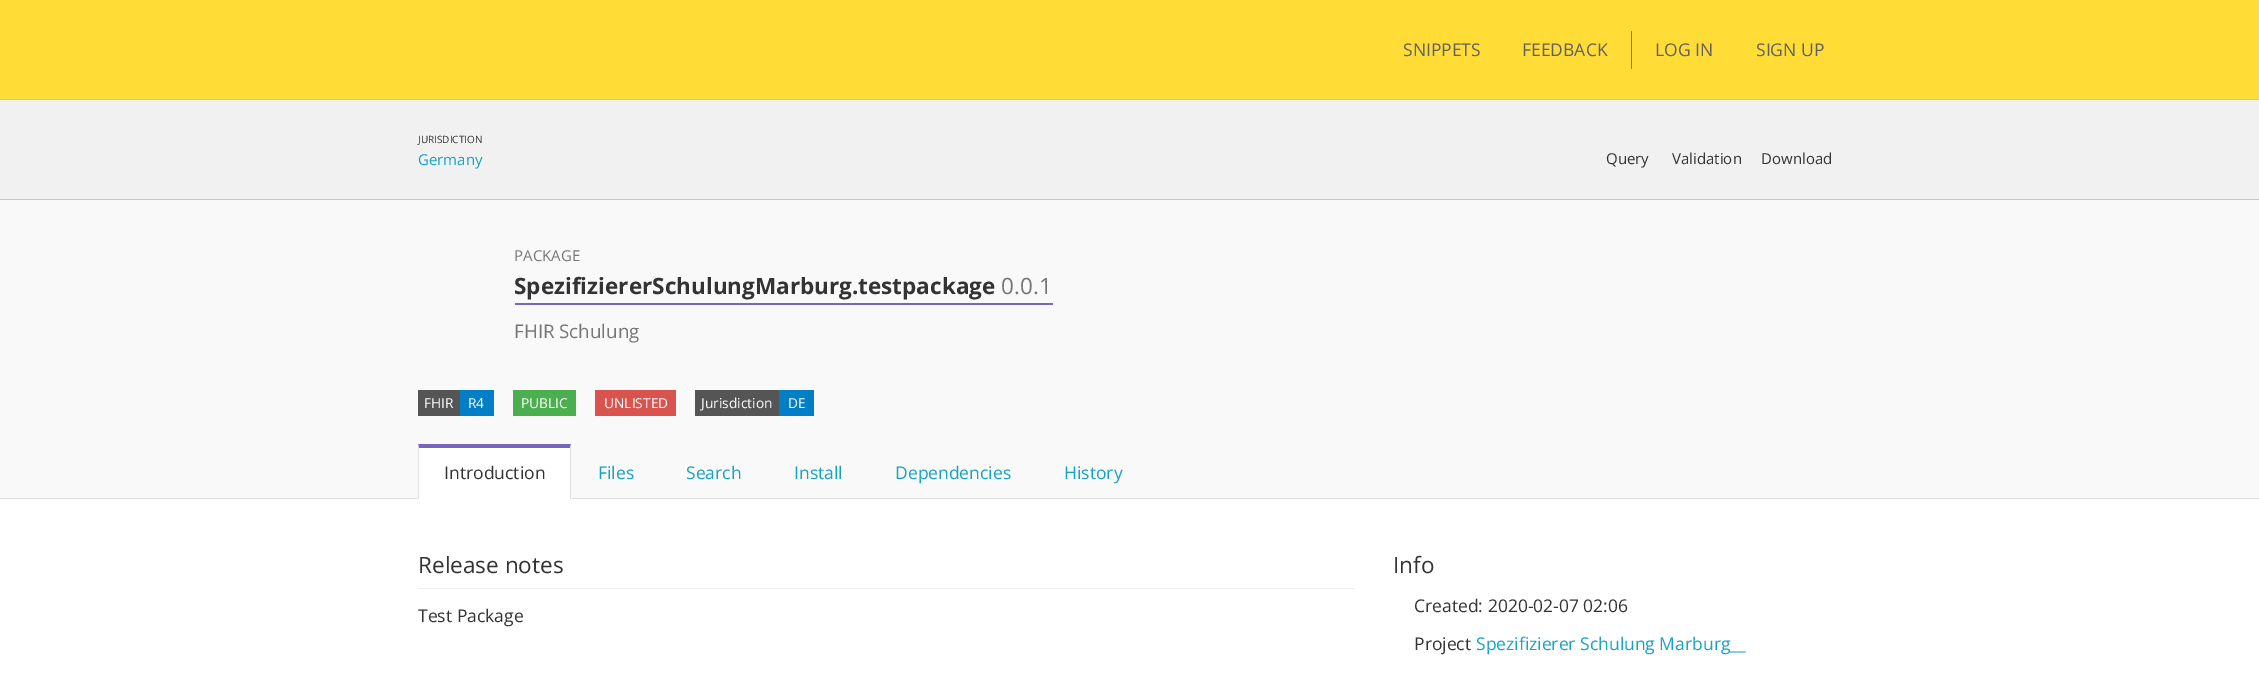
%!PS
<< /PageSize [2259 684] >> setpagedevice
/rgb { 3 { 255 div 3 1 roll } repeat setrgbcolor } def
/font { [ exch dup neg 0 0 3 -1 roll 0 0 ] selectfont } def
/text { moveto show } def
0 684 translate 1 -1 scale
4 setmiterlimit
255 255 255 rgb
0 0 2259 684 rectfill
255 220 54 rgb
0 0 2259 99 rectfill
238 204 34 rgb
0 99 2259 1 rectfill
22 162 197 rgb
1631 31 1 38 rectfill
241 241 241 rgb
0 100 2259 99 rectfill
199 199 199 rgb
0 199 2259 1 rectfill
249 249 249 rgb
0 200 2259 298 rectfill
224 224 224 rgb
0 498 2259 1 rectfill
119 102 187 rgb
515 303 538 2 rectfill
85 85 85 rgb
418 390 42 26 rectfill
0 126 198 rgb
460 390 34 26 rectfill
75 174 79 rgb
513 390 63 26 rectfill
217 83 79 rgb
595 390 81 26 rectfill
85 85 85 rgb
695 390 84 26 rectfill
0 126 198 rgb
779 390 35 26 rectfill
255 255 255 rgb
418 444 153 55 rectfill
119 102 187 rgb
418 444 moveto 153 0 rlineto -1 4 rlineto -151 0 rlineto closepath fill
224 224 224 rgb
571 444 moveto 0 55 rlineto -1 -1 rlineto 0 -50 rlineto closepath fill
418 499 moveto 0 -55 rlineto 1 4 rlineto 0 50 rlineto closepath fill
238 238 238 rgb
418 588 937 1 rectfill
/OpenSans-Regular 17.5 font
97 97 97 rgb
(SNIPPETS) 1403 56 text
(FEEDBACK) 1522 56 text
(LOG IN) 1655 56 text
(SIGN UP) 1756 56 text
/OpenSans-Regular 10 font
51 51 51 rgb
(JURISDICTION) 418 143 text
/OpenSans-Regular 15 font
22 162 197 rgb
(Germany) 418 165 text
51 51 51 rgb
(Query) 1606 164 text
(Validation) 1672 164 text
(Download) 1761 164 text
119 119 119 rgb
(PACKAGE) 514 261 text
/OpenSans-Bold 22.5 font
51 51 51 rgb
(SpezifiziererSchulungMarburg.testpackage) 514 294 text
/OpenSans-Regular 22.5 font
119 119 119 rgb
(0.0.1) 1001 294 text
/OpenSans-Regular 18.75 font
(FHIR Schulung) 514 338 text
/OpenSans-Regular 13.75 font
255 255 255 rgb
(FHIR) 424 408 text
(R4) 468 408 text
(PUBLIC) 521 408 text
(UNLISTED) 604 408 text
(Jurisdiction) 701 408 text
(DE) 788 408 text
/OpenSans-Regular 17.5 font
51 51 51 rgb
(Introduction) 444 479 text
22 162 197 rgb
(Files) 598 479 text
(Search) 686 479 text
(Install) 794 479 text
(Dependencies) 895 479 text
(History) 1064 479 text
/OpenSans-Regular 22.5 font
51 51 51 rgb
(Release notes) 418 573 text
/OpenSans-Regular 17.5 font
(Test Package) 418 622 text
/OpenSans-Regular 22.5 font
(Info) 1393 573 text
/OpenSans-Regular 17.5 font
(Created: 2020-02-07 02:06) 1414 612 text
(Project) 1414 650 text
22 162 197 rgb
(Spezifizierer Schulung Marburg__) 1476 650 text
showpage
